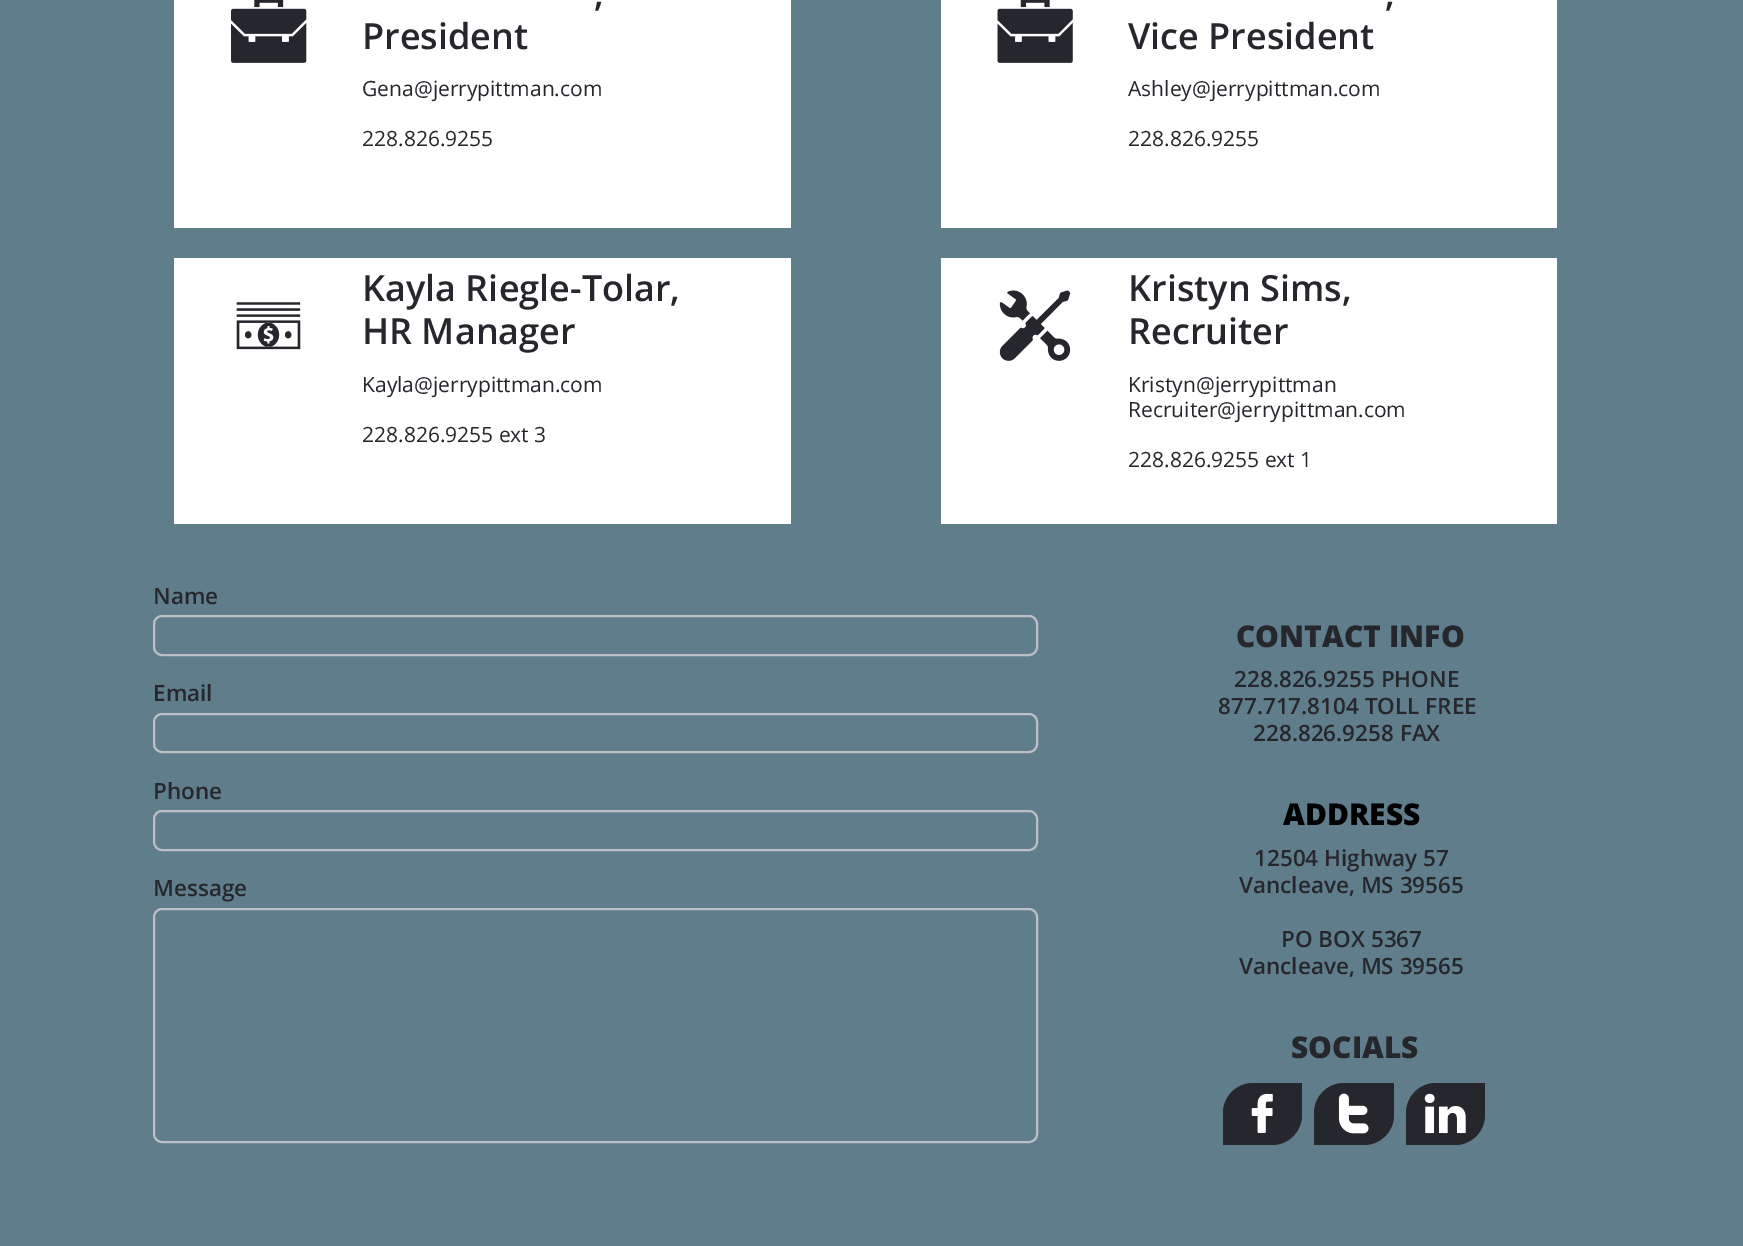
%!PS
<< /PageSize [1743 1246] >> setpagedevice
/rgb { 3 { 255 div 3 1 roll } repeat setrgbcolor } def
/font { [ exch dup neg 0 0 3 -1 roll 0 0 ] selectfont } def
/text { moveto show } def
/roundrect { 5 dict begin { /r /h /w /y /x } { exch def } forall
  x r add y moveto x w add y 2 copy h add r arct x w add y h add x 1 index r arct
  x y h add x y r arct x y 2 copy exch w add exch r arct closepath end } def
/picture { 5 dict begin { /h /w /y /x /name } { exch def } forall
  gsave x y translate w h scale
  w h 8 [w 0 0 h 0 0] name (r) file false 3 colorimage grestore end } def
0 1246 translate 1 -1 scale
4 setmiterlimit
96 125 139 rgb
0 0 1743 1246 rectfill
255 255 255 rgb
174 0 617 228 rectfill
(img_01.rgb) 231 0 76 63 picture
941 0 616 228 rectfill
(img_02.rgb) 997 0 76 63 picture
174 258 617 266 rectfill
(img_03.rgb) 236 302 65 48 picture
941 258 616 266 rectfill
(img_04.rgb) 999 290 72 71 picture
189 191 198 rgb
2 setlinewidth
154 616 883 39 8 roundrect stroke
154 714 883 38 8 roundrect stroke
154 811 883 39 8 roundrect stroke
154 909 883 233 8 roundrect stroke
38 39 44 rgb
1253 1083 moveto 49 0 rlineto 0 32 rlineto 0 16.5 -13.5 30 -30 30 rcurveto -49 0 rlineto 0 -32 rlineto 0 -16.5 13.5 -30 30 -30 rcurveto closepath fill
(img_05.rgb) 1251 1093 22 40 picture
1344 1083 moveto 50 0 rlineto 0 32 rlineto 0 16.5 -13.5 30 -30 30 rcurveto -50 0 rlineto 0 -32 rlineto 0 -16.5 13.5 -30 30 -30 rcurveto closepath fill
(img_06.rgb) 1338 1093 31 41 picture
1436 1083 moveto 49 0 rlineto 0 32 rlineto 0 16.5 -13.5 30 -30 30 rcurveto -49 0 rlineto 0 -32 rlineto 0 -16.5 13.5 -30 30 -30 rcurveto closepath fill
(img_07.rgb) 1424 1093 42 41 picture
/OpenSans-SemiBold 36 font
(,) 594 6 text
(President) 362 49 text
/OpenSans-Regular 21 font
(Gena@jerrypittman.com) 362 96 text
(228.826.9255) 362 146 text
/OpenSans-SemiBold 36 font
(,) 1385 6 text
(Vice President) 1128 49 text
/OpenSans-Regular 21 font
(Ashley@jerrypittman.com) 1128 96 text
(228.826.9255) 1128 146 text
/OpenSans-SemiBold 36 font
(Kayla Riegle-Tolar,) 362 301 text
(HR Manager) 362 344 text
/OpenSans-Regular 21 font
(Kayla@jerrypittman.com) 362 392 text
(228.826.9255 ext 3) 362 442 text
/OpenSans-SemiBold 36 font
(Kristyn Sims,) 1128 301 text
(Recruiter) 1128 344 text
/OpenSans-Regular 21 font
(Kristyn@jerrypittman) 1128 392 text
(Recruiter@jerrypittman.com) 1128 417 text
(228.826.9255 ext 1) 1128 467 text
/OpenSans-SemiBold 22.5 font
(Name) 153 604 text
(Email) 153 701 text
(Phone) 153 799 text
(Message) 153 896 text
/OpenSans-ExtraBold 30 font
(CONTACT INFO) 1236 647 text
/OpenSans-SemiBold 22.5 font
(228.826.9255 PHONE) 1234 687 text
(877.717.8104 TOLL FREE) 1218 714 text
(228.826.9258 FAX) 1253 741 text
/OpenSans-ExtraBold 30 font
0 0 0 rgb
(ADDRESS) 1283 825 text
/OpenSans-SemiBold 22.5 font
38 39 44 rgb
(12504 Highway 57) 1254 866 text
(Vancleave, MS 39565) 1239 893 text
(PO BOX 5367) 1281 947 text
(Vancleave, MS 39565) 1239 974 text
/OpenSans-ExtraBold 30 font
(SOCIALS) 1291 1058 text
showpage
